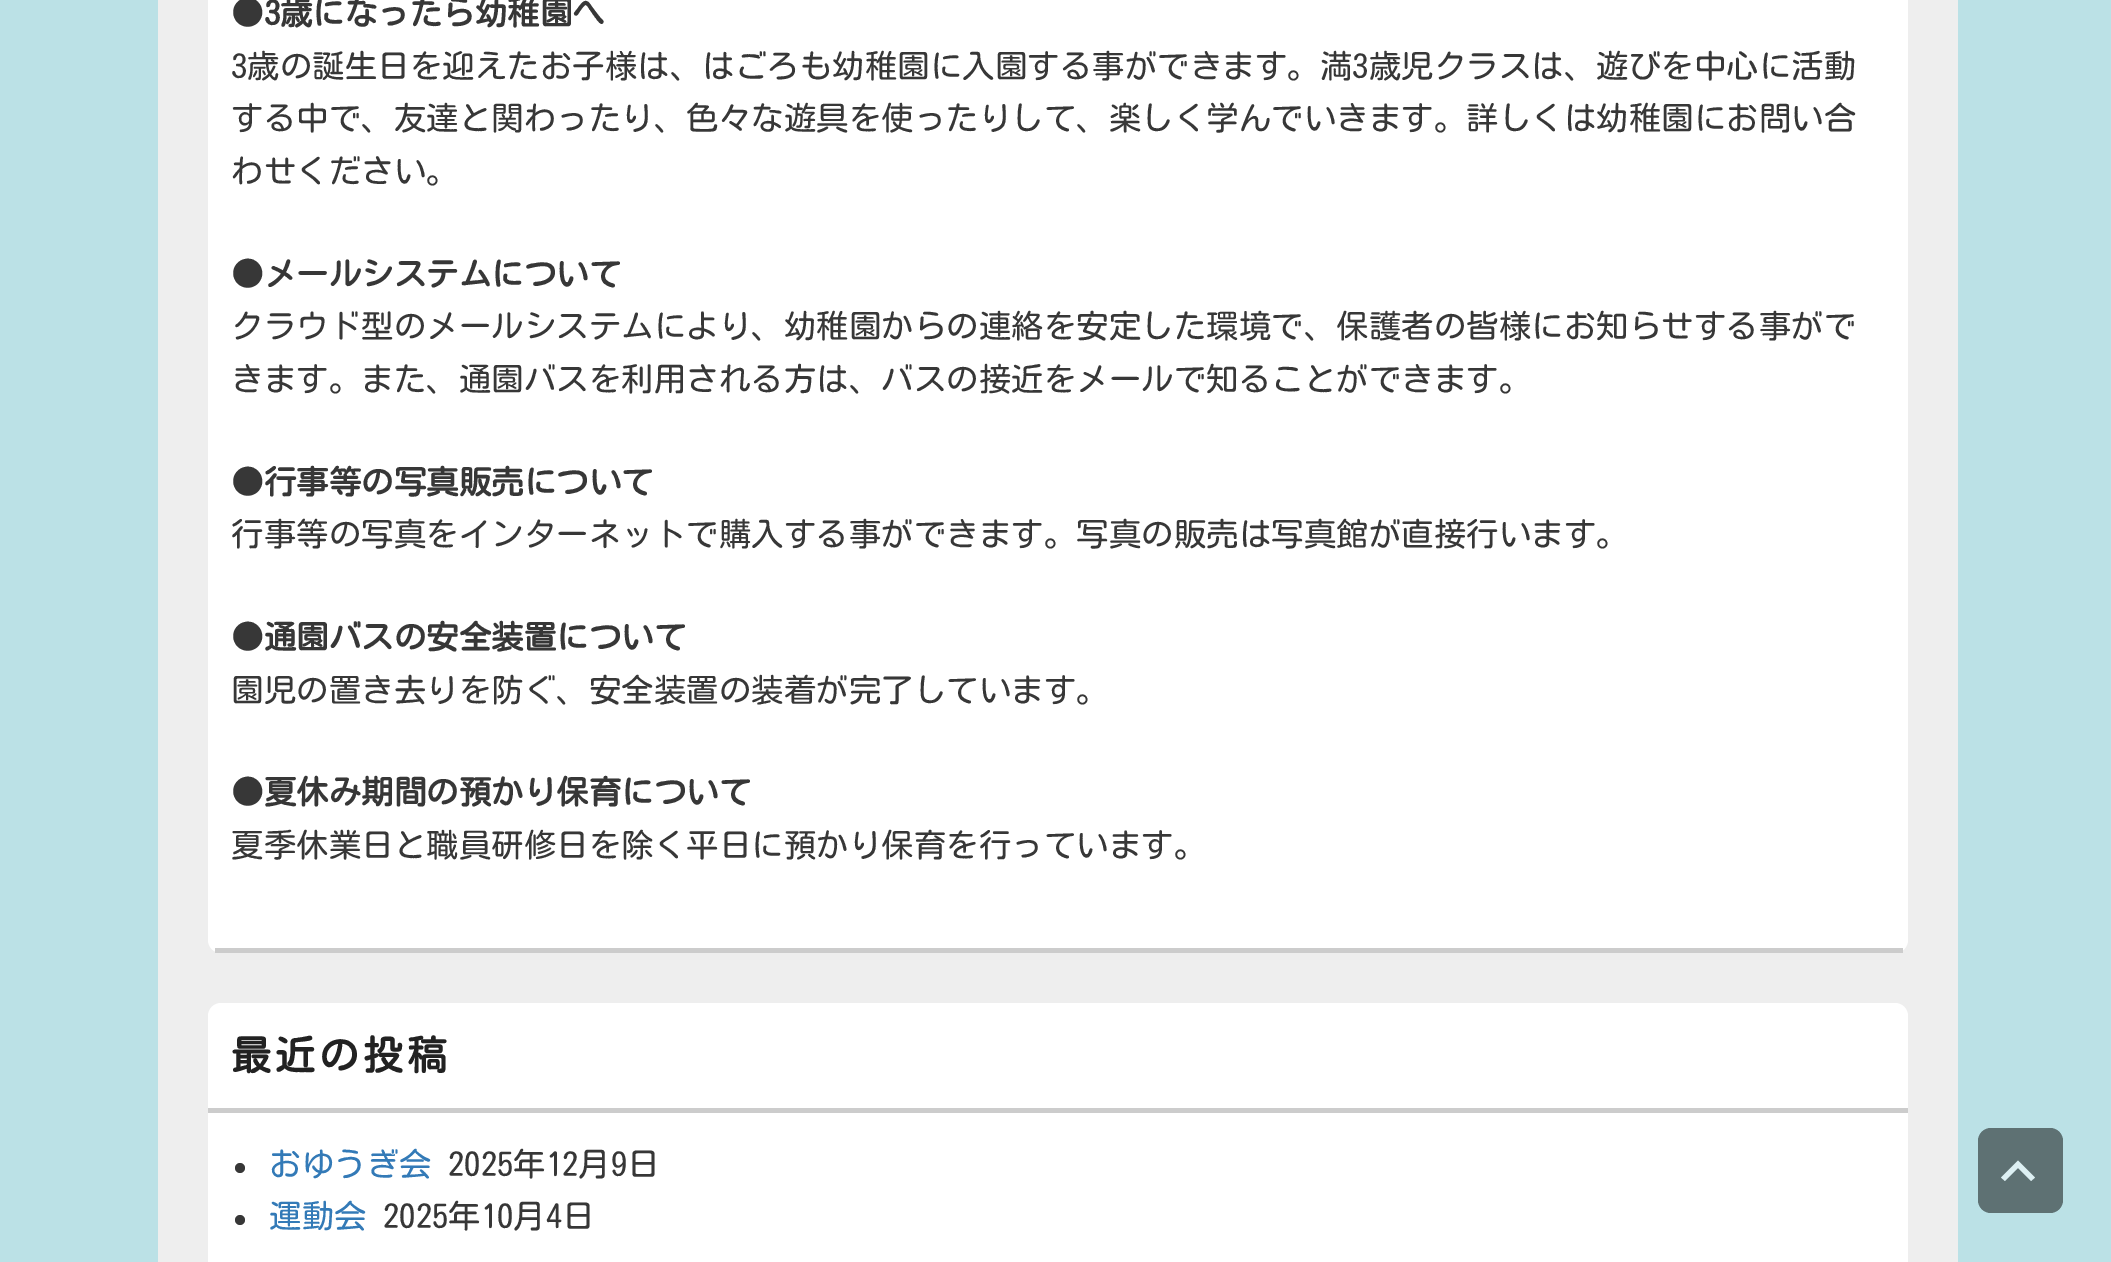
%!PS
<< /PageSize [2111 1262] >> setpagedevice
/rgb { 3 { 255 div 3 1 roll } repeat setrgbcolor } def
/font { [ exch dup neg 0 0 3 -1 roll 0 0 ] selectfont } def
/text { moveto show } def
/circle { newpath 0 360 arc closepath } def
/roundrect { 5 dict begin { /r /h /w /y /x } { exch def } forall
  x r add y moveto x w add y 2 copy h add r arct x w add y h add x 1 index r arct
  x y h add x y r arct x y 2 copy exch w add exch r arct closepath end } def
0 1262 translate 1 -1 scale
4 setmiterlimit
187 225 230 rgb
0 0 2111 1262 rectfill
238 238 238 rgb
158 0 1800 1262 rectfill
255 255 255 rgb
208 -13 1700 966 13 roundrect fill
204 204 204 rgb
215 948 1688 5 rectfill
255 255 255 rgb
208 1003 1700 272 13 roundrect fill
204 204 204 rgb
208 1108 1700 5 rectfill
55 55 55 rgb
240 1168 5 circle fill
240 1220 5 circle fill
94 113 115 rgb
1978 1128 85 85 13 roundrect fill
221 240 243 rgb
2031 1181 moveto -13 -13 rlineto -13 13 rlineto -4 -3.5 rlineto 17 -17 rlineto 17 17 rlineto closepath fill
/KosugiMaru-Bold 32.5 font
55 55 55 rgb
(●3歳になったら幼稚園へ) 231 25 text
/KosugiMaru-Regular 32.5 font
(3歳の誕生日を迎えたお子様は、はごろも幼稚園に入園する事ができます。満3歳児クラスは、遊びを中心に活動) 231 78 text
(する中で、友達と関わったり、色々な遊具を使ったりして、楽しく学んでいきます。詳しくは幼稚園にお問い合) 231 130 text
(わせください。) 231 183 text
/KosugiMaru-Bold 32.5 font
(●メールシステムについて) 231 286 text
/KosugiMaru-Regular 32.5 font
(クラウド型のメールシステムにより、幼稚園からの連絡を安定した環境で、保護者の皆様にお知らせする事がで) 231 338 text
(きます。また、通園バスを利用される方は、バスの接近をメールで知ることができます。) 231 391 text
/KosugiMaru-Bold 32.5 font
(●行事等の写真販売について) 231 494 text
/KosugiMaru-Regular 32.5 font
(行事等の写真をインターネットで購入する事ができます。写真の販売は写真館が直接行います。) 231 546 text
/KosugiMaru-Bold 32.5 font
(●通園バスの安全装置について) 231 649 text
/KosugiMaru-Regular 32.5 font
(園児の置き去りを防ぐ、安全装置の装着が完了しています。) 231 702 text
/KosugiMaru-Bold 32.5 font
(●夏休み期間の預かり保育について) 231 804 text
/KosugiMaru-Regular 32.5 font
(夏季休業日と職員研修日を除く平日に預かり保育を行っています。) 231 857 text
/KosugiMaru-Bold 40 font
34 34 34 rgb
231 1070 moveto 4 0 (最近の投稿) ashow
/KosugiMaru-Regular 32.5 font
51 122 183 rgb
(おゆうぎ会) 269 1176 text
55 55 55 rgb
(2025年12月9日) 448 1176 text
51 122 183 rgb
(運動会) 269 1228 text
55 55 55 rgb
(2025年10月4日) 383 1228 text
showpage
